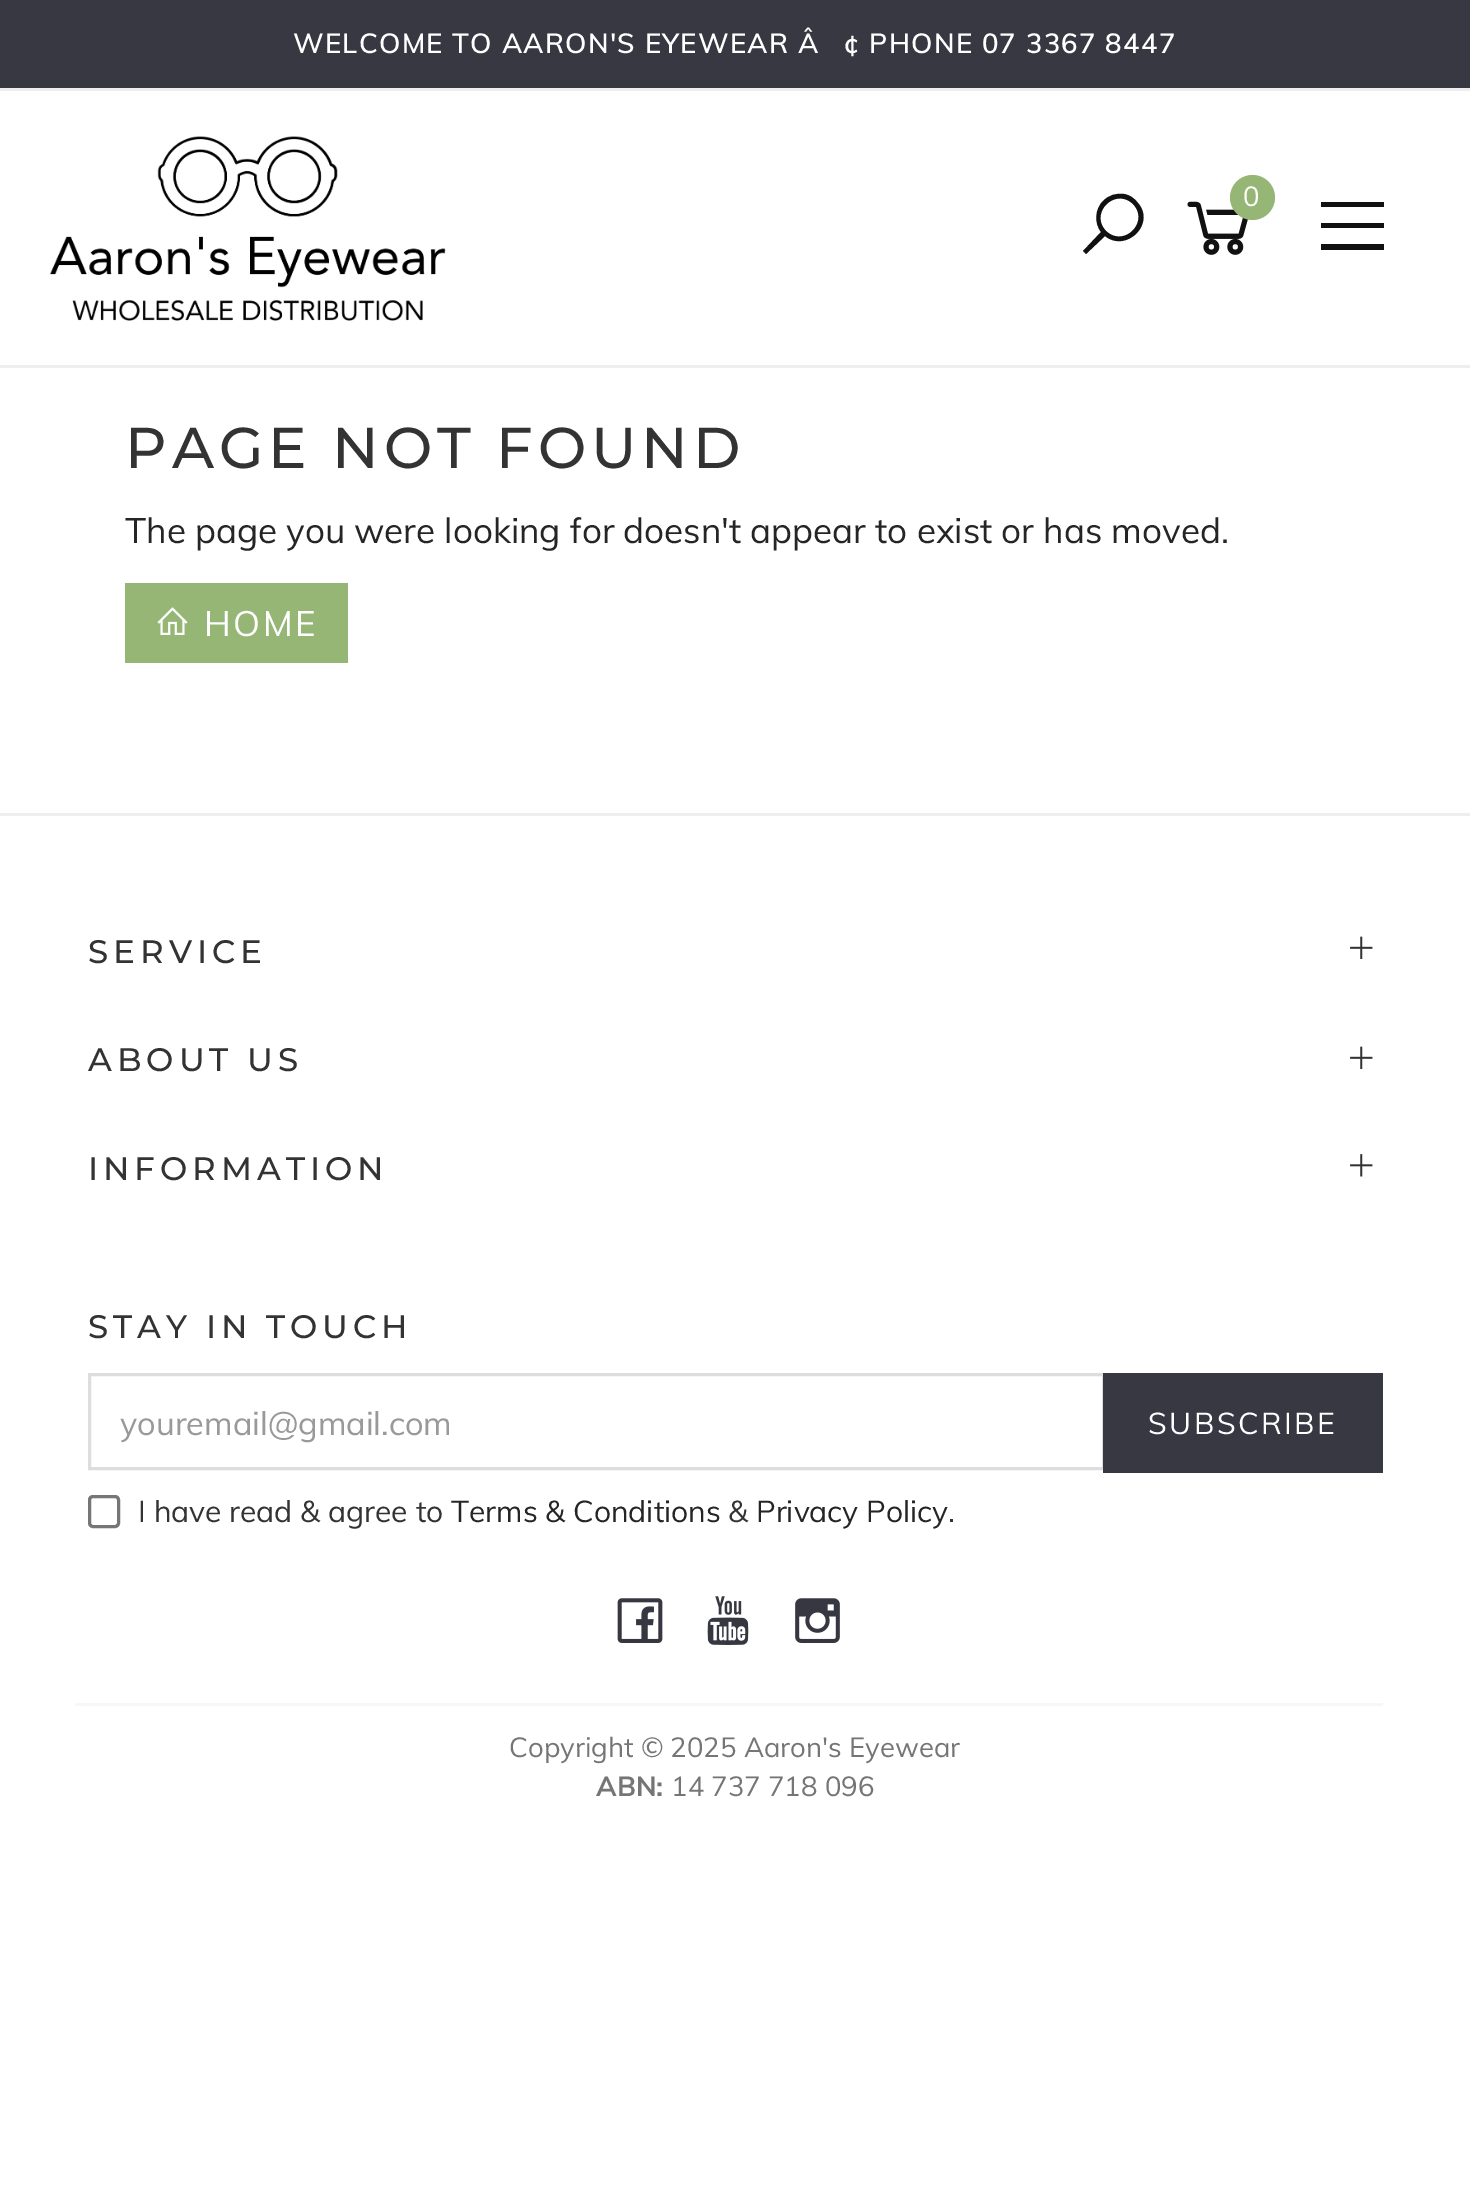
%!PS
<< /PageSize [1470 2191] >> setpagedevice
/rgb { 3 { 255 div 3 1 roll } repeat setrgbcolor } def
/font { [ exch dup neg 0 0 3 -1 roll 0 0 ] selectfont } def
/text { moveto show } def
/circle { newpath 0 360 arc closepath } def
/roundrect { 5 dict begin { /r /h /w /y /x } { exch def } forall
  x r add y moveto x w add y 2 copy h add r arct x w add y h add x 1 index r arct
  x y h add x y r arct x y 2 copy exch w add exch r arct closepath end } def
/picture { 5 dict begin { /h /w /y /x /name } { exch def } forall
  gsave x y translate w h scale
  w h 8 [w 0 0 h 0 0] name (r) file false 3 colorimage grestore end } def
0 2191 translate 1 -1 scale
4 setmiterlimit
255 255 255 rgb
0 0 1470 2191 rectfill
55 56 66 rgb
0 0 1470 88 rectfill
238 238 238 rgb
0 88 1470 3 rectfill
0 365 1470 3 rectfill
(img_01.rgb) 50 136 396 185 picture
17 17 17 rgb
1103 201 moveto 6 -6 13 -8 21 -7 rcurveto 6 1 10 4 14 9 rcurveto 18 21 -12 50 -33 33 rcurveto -19 18 rlineto -3 -3 rlineto 18 -19 rlineto -7 -9 -6 -23 2 -31 rcurveto closepath 1133 204 moveto -18 -17 -44 9 -27 27 rcurveto 18 17 44 -9 27 -27 rcurveto closepath fill
(img_02.rgb) 1187 201 61 54 picture
149 182 117 rgb
1252.5 197.5 22.5 circle fill
17 17 17 rgb
1321 202 moveto 63 0 rlineto 0 5 rlineto -63 0 rlineto closepath 1321 223 moveto 63 0 rlineto 0 5 rlineto -63 0 rlineto closepath 1321 244 moveto 63 0 rlineto 0 6 rlineto -63 0 rlineto closepath fill
149 182 117 rgb
125 583 223 80 rectfill
(img_03.rgb) 157 607 31 28 picture
238 238 238 rgb
0 813 1470 3 rectfill
(img_04.rgb) 1350 936 23 23 picture
(img_04.rgb) 1350 1046 23 23 picture
(img_05.rgb) 1350 1154 23 23 picture
221 221 221 rgb
3 setlinewidth
89.5 1374.5 1014 94 rectstroke
55 56 66 rgb
1103 1373 280 100 rectfill
118 118 118 rgb
89.5 1496.5 29 30 3.5 roundrect stroke
247 247 247 rgb
75 1703 1308 3 rectfill
(img_06.rgb) 617 1598 46 45 picture
(img_07.rgb) 707 1596 42 49 picture
(img_08.rgb) 795 1598 45 45 picture
/Muli-SemiBold 27.5 font
255 255 255 rgb
293 53 moveto 1.25 0 (WELCOME TO AARON'S EYEWEAR Â) ashow
843 53 moveto 1.25 0 (¢ PHONE 07 3367 8447) ashow
/Muli-Regular 27.5 font
(0) 1243 206 text
/Montserrat-Medium 57.5 font
51 51 51 rgb
125 468 moveto 5 0 (PAGE NOT FOUND) ashow
/Muli-Regular 35 font
37 37 37 rgb
(The page you were looking for doesn't appear to exist or has moved.) 125 543 text
255 255 255 rgb
204 636 moveto 2.5 0 (HOME) ashow
/Montserrat-Medium 32.5 font
51 51 51 rgb
88 963 moveto 5 0 (SERVICE) ashow
88 1071 moveto 5 0 (ABOUT US) ashow
88 1180 moveto 5 0 (INFORMATION) ashow
88 1338 moveto 5 0 (STAY IN TOUCH) ashow
/Muli-Regular 32.5 font
153 153 153 rgb
(youremail@gmail.com) 120 1435 text
/Muli-Regular 30 font
255 255 255 rgb
1148 1434 moveto 2.5 0 (SUBSCRIBE) ashow
51 51 51 rgb
(I have read & agree to) 138 1522 text
37 37 37 rgb
(Terms & Conditions) 451 1522 text
51 51 51 rgb
(&) 728 1522 text
37 37 37 rgb
(Privacy Policy) 756 1522 text
51 51 51 rgb
(.) 948 1522 text
/Muli-Regular 27.5 font
117 117 117 rgb
(Copyright © 2025 Aaron's Eyewear) 509 1757 text
/Muli-Bold 27.5 font
(ABN:) 596 1796 text
/Muli-Regular 27.5 font
(14 737 718 096) 671 1796 text
showpage
